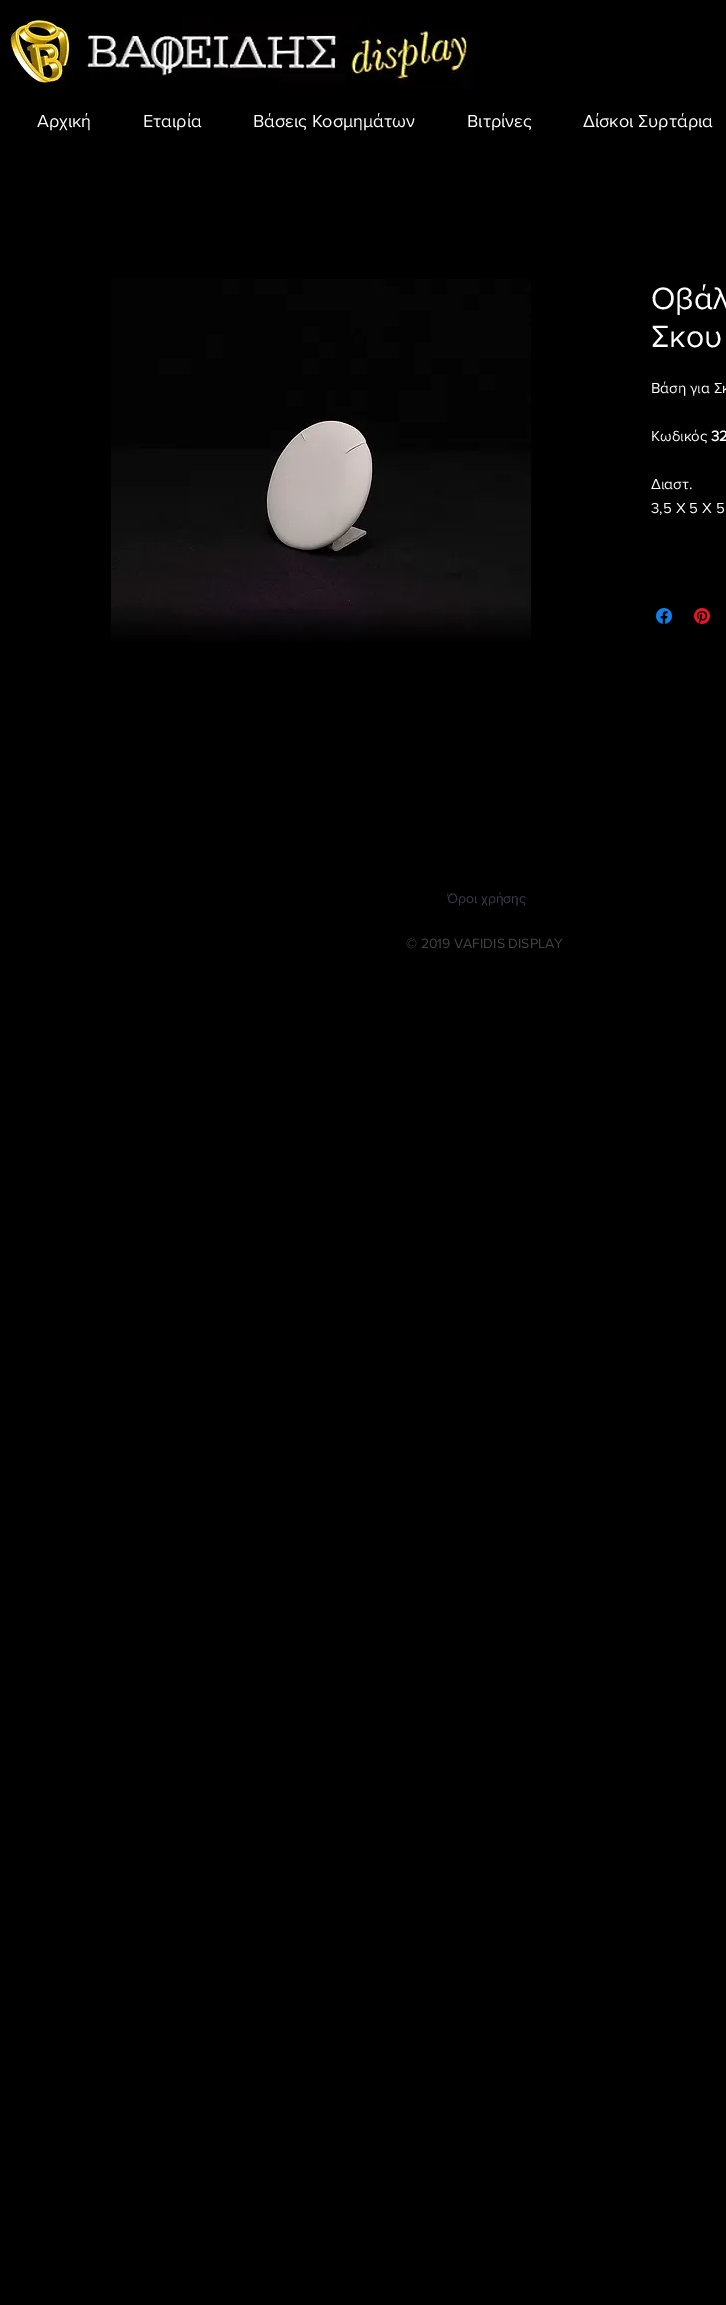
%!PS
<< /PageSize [726 2305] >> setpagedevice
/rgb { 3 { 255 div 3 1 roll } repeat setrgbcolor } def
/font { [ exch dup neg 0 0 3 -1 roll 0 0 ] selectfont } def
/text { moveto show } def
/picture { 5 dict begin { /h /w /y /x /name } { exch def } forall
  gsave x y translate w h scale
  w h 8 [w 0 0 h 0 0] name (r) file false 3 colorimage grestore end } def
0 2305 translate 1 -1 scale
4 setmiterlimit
0 0 0 rgb
0 0 726 2305 rectfill
(img_01.rgb) 6 17 470 72 picture
(img_02.rgb) 111 279 420 362 picture
(img_03.rgb) 656 608 16 16 picture
(img_04.rgb) 694 608 16 16 picture
/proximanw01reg-Regular 18 font
255 255 255 rgb
(Αρχική) 37 127 text
(Εταιρία) 143 127 text
(Βάσεις Κοσμημάτων) 253 127 text
(Βιτρίνες) 467 127 text
(Δίσκοι Συρτάρια) 583 127 text
/proximanw01reg-Regular 32 font
(Οβάλ) 651 309 text
(Σκου) 651 347 text
/proximanw01reg-Regular 15 font
(Βάση για Σκ) 651 393 text
(Κωδικός) 651 441 text
/proximanw01reg-Bold 15 font
(32) 711 441 text
/proximanw01reg-Regular 15 font
(Διαστ.) 651 489 text
(3,5 Χ 5 Χ 5) 651 513 text
/proximanw01reg-Regular 14 font
55 59 77 rgb
(Όροι χρήσης) 447 903 text
65 65 65 rgb
(© 2019 VAFIDIS DISPLAY) 406 948 text
showpage
